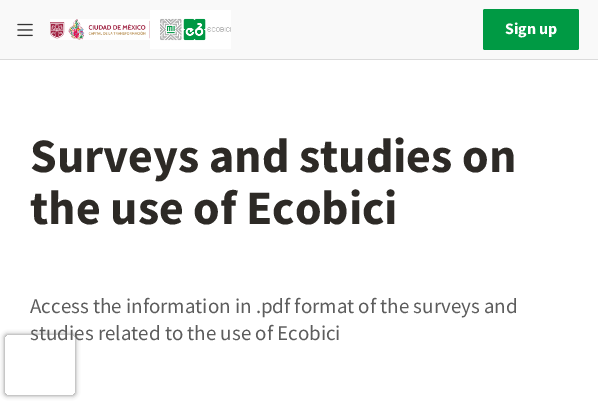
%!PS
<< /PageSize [598 409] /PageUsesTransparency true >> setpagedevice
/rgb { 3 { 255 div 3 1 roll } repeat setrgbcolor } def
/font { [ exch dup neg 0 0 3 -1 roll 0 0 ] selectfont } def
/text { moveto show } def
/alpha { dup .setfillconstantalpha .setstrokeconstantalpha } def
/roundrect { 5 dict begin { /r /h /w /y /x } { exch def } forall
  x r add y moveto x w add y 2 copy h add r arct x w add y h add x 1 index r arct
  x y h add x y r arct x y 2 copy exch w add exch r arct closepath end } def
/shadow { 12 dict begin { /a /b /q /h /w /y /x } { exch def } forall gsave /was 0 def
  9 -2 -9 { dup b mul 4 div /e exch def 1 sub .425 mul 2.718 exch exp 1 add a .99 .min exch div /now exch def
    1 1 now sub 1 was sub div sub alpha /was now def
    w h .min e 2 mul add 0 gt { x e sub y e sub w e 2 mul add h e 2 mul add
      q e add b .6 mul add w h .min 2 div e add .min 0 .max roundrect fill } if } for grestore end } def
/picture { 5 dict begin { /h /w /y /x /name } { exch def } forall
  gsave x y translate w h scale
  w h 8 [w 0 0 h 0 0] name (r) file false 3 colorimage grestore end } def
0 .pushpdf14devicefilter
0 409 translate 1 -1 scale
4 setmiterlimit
255 255 255 rgb
0 0 598 409 rectfill
249 249 249 rgb
0 0 598 59 rectfill
219 219 219 rgb
0 59 598 1 rectfill
(img_01.rgb) 17 23 16 14 picture
(img_02.rgb) 50 19 100 21 picture
(img_03.rgb) 150 10 81 39 picture
0 154 68 rgb
483 9 96 41 2 roundrect fill
gsave
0 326 moveto 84 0 rlineto 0 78 rlineto -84 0 rlineto closepath 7 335 moveto 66 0 rlineto 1 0 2 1 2 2 rcurveto 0 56 rlineto 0 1 -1 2 -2 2 rcurveto -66 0 rlineto -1 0 -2 -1 -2 -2 rcurveto 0 -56 rlineto 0 -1 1 -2 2 -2 rcurveto closepath eoclip newpath
128 128 128 rgb
5 335 70 60 2 2.5 1 shadow
grestore
/SourceSansPro-Bold 16 font
255 255 255 rgb
(Sign up) 505 34 text
/SourceSansPro-Bold 48 font
45 42 38 rgb
(Surveys and studies on) 30 172 text
(the use of Ecobici) 30 224 text
/SourceSansPro-Regular 21 font
93 93 93 rgb
(Access the information in .pdf format of the surveys and) 30 313 text
(studies related to the use of Ecobici) 30 340 text
.poppdf14devicefilter showpage
